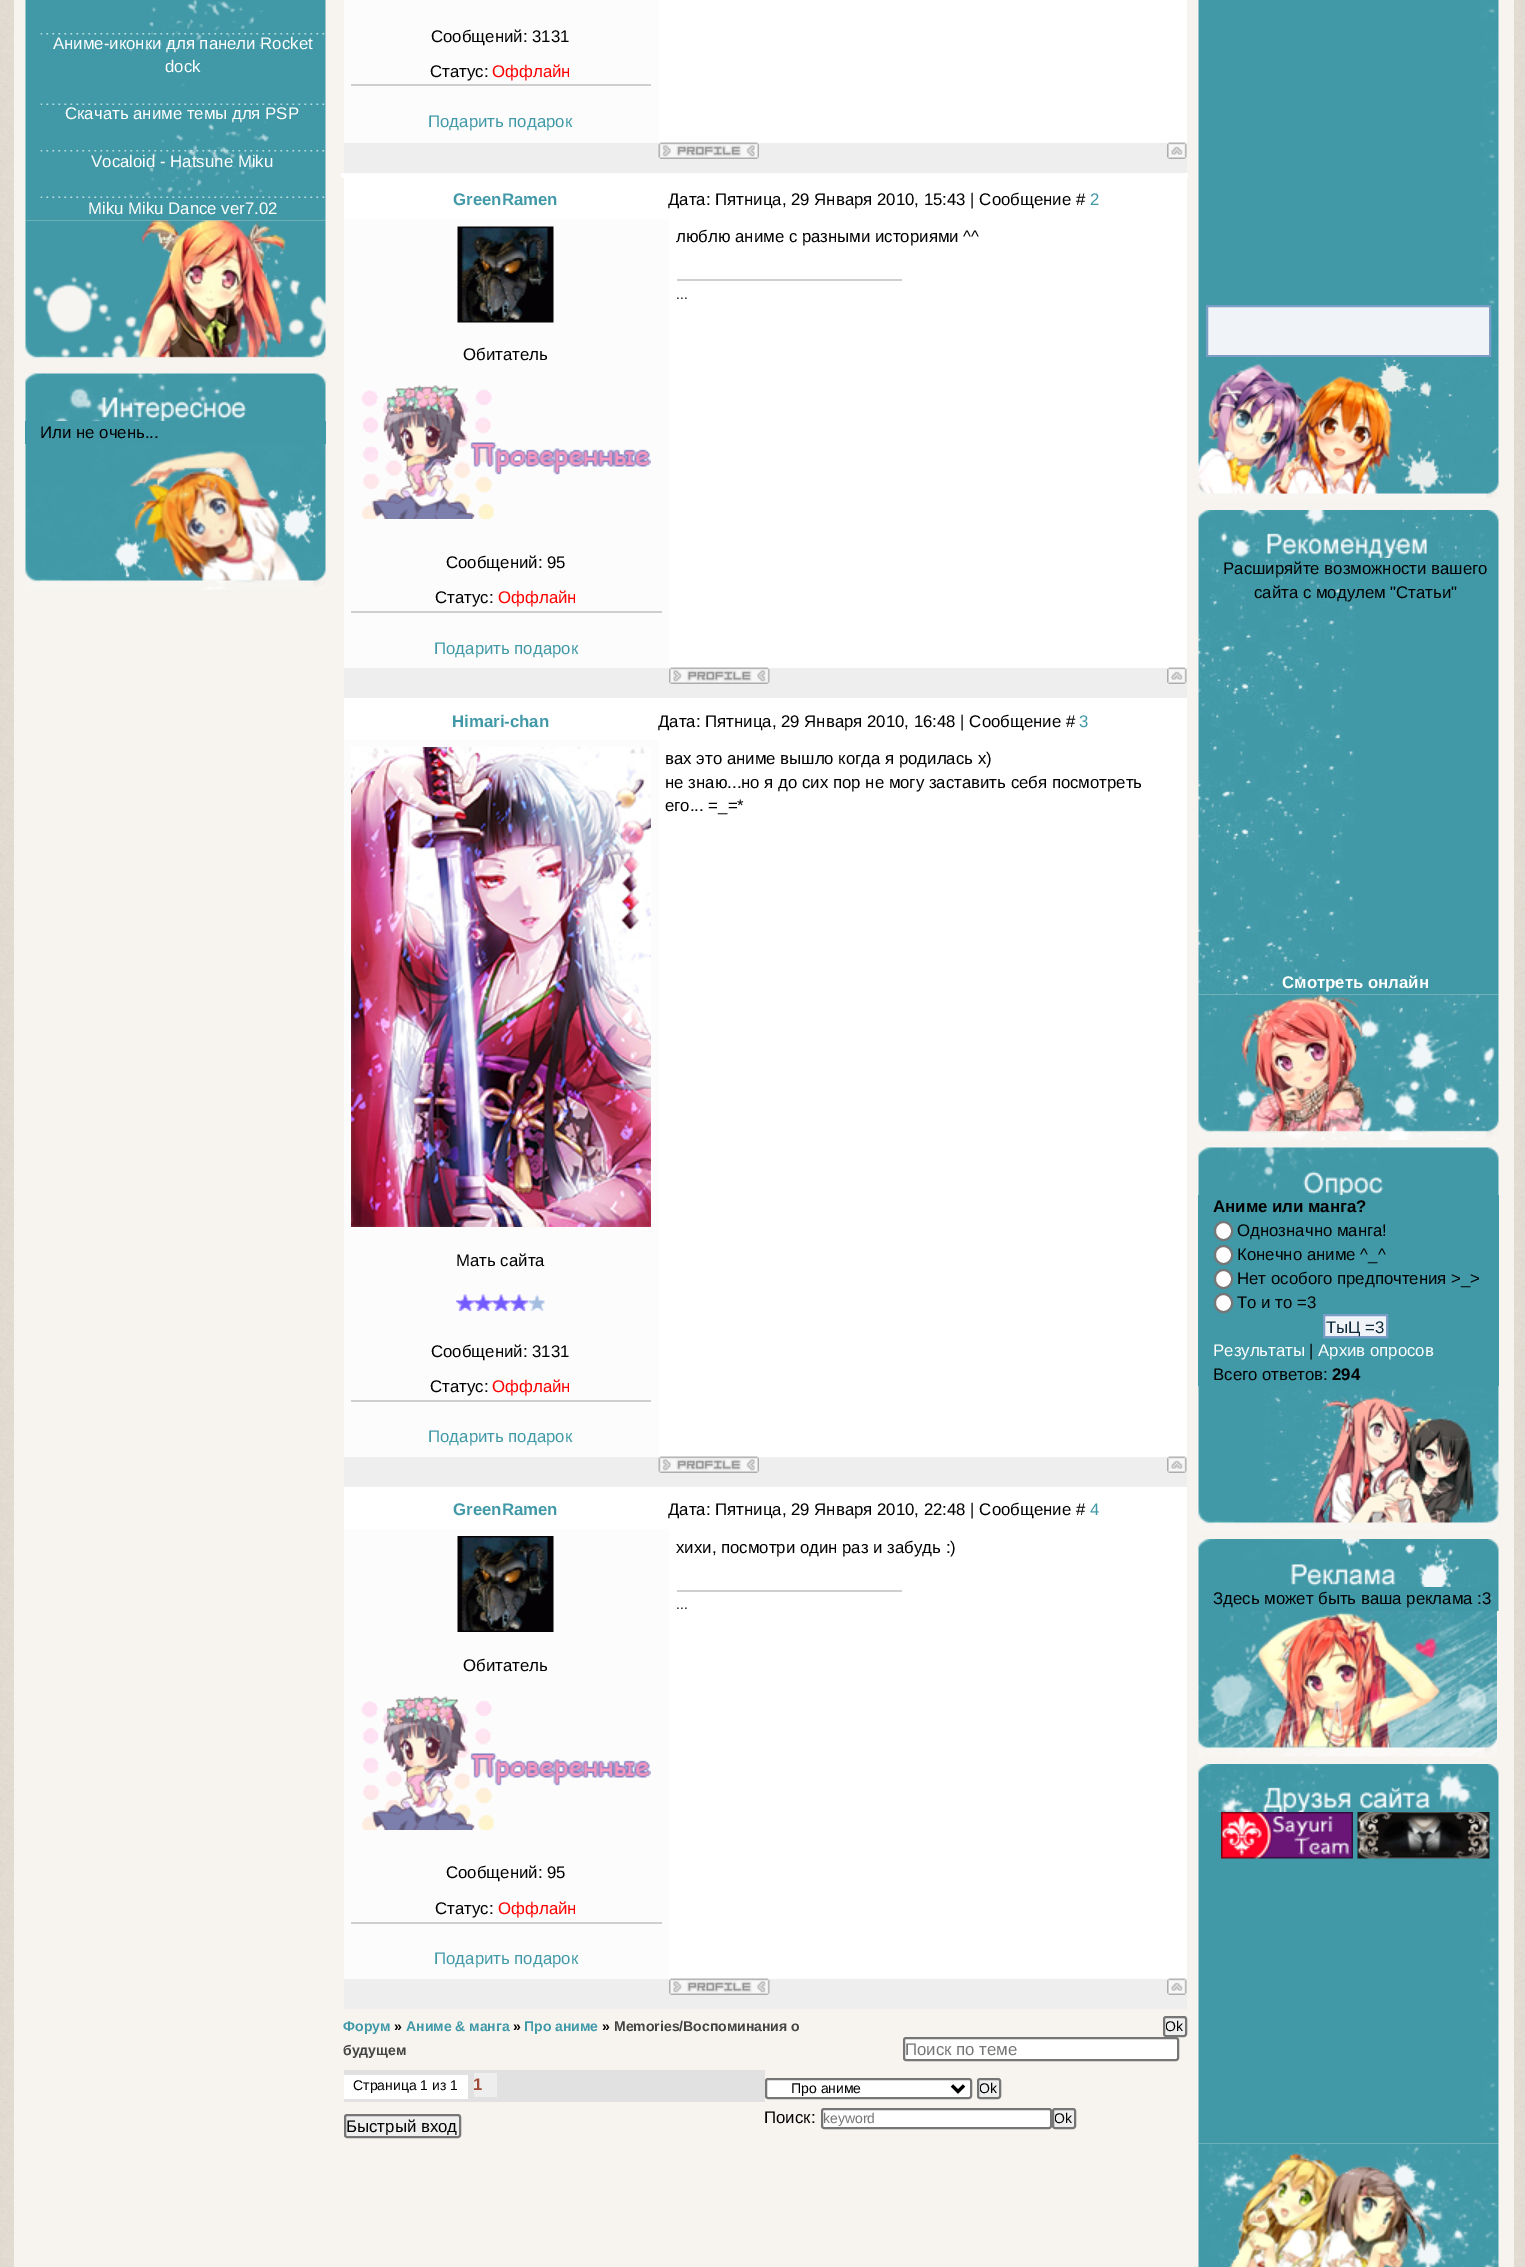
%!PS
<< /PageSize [1525 2267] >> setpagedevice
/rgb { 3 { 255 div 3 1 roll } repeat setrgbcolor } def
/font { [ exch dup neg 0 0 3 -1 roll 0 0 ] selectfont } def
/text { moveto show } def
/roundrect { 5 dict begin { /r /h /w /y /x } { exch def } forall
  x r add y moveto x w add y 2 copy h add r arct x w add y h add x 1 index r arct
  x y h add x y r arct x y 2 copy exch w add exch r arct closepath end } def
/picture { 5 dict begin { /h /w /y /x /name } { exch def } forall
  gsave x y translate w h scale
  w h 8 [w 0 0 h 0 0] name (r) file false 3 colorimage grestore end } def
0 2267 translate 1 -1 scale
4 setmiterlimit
255 255 255 rgb
0 0 1525 2267 rectfill
(img_01.rgb) 0 0 1525 2267 picture
247 244 240 rgb
14 0 1500 2267 rectfill
(img_02.rgb) 25 0 301 221 picture
(img_03.rgb) 40 33 285 2 picture
(img_04.rgb) 40 103 285 2 picture
(img_05.rgb) 40 150 285 2 picture
(img_06.rgb) 40 196 285 2 picture
(img_07.rgb) 25 220 301 139 picture
(img_08.rgb) 25 373 301 48 picture
65 153 168 rgb
25 421 301 23 rectfill
(img_09.rgb) 25 444 301 146 picture
255 255 255 rgb
341 173 847 5 rectfill
252 252 252 rgb
344 0 315 143 rectfill
207 207 207 rgb
351 84 300 2 rectfill
255 255 255 rgb
659 0 528 143 rectfill
238 238 238 rgb
344 143 843 30 rectfill
(img_10.rgb) 658 142 101 17 picture
(img_11.rgb) 1167 142 20 17 picture
255 255 255 rgb
344 178 843 41 rectfill
669 219 518 449 rectfill
207 207 207 rgb
677 279 225 2 rectfill
252 252 252 rgb
344 219 325 449 rectfill
(img_12.rgb) 457 226 97 97 picture
(img_13.rgb) 361 385 290 134 picture
207 207 207 rgb
351 611 311 2 rectfill
238 238 238 rgb
344 668 843 30 rectfill
(img_14.rgb) 669 667 101 17 picture
(img_11.rgb) 1167 667 20 17 picture
255 255 255 rgb
344 698 843 42 rectfill
659 740 528 717 rectfill
252 252 252 rgb
344 740 315 717 rectfill
(img_15.rgb) 351 747 300 480 picture
(img_16.rgb) 456 1294 89 17 picture
207 207 207 rgb
351 1400 300 2 rectfill
238 238 238 rgb
344 1457 843 30 rectfill
(img_10.rgb) 658 1456 101 17 picture
(img_11.rgb) 1167 1456 20 17 picture
255 255 255 rgb
344 1487 843 42 rectfill
669 1529 518 450 rectfill
207 207 207 rgb
677 1590 225 2 rectfill
252 252 252 rgb
344 1529 325 450 rectfill
(img_17.rgb) 457 1536 97 96 picture
(img_13.rgb) 361 1696 290 134 picture
207 207 207 rgb
351 1922 311 2 rectfill
238 238 238 rgb
344 1979 843 30 rectfill
(img_14.rgb) 669 1978 101 17 picture
(img_11.rgb) 1167 1978 20 17 picture
239 239 239 rgb
1164 2017 22 19 2 roundrect gsave fill grestore
118 118 118 rgb
2 setlinewidth
stroke
255 255 255 rgb
904 2038 274 22 2 roundrect gsave fill grestore
118 118 118 rgb
stroke
225 225 225 rgb
344 2070 421 32 rectfill
255 255 255 rgb
344 2075 124 24 rectfill
238 238 238 rgb
474 2073 23 24 rectfill
255 255 255 rgb
766 2079 205 19 2 roundrect gsave fill grestore
118 118 118 rgb
stroke
0 0 0 rgb
3 setlinewidth
952 2085.5 moveto 6 6 rlineto 6 -6 rlineto stroke
239 239 239 rgb
978 2079 22 19 2 roundrect gsave fill grestore
118 118 118 rgb
2 setlinewidth
stroke
239 239 239 rgb
345 2115 115 22 2 roundrect gsave fill grestore
118 118 118 rgb
stroke
255 255 255 rgb
822 2109 229 19 2 roundrect gsave fill grestore
118 118 118 rgb
stroke
239 239 239 rgb
1053 2109 22 19 2 roundrect gsave fill grestore
118 118 118 rgb
stroke
(img_18.rgb) 1198 0 301 357 picture
240 244 249 rgb
1207 306 moveto 283 0 rlineto 0 50 rlineto -283 0 rlineto closepath gsave fill grestore
121 157 196 rgb
stroke
(img_19.rgb) 1198 357 301 141 picture
(img_20.rgb) 1198 510 301 48 picture
(img_21.rgb) 1198 558 301 437 picture
(img_22.rgb) 1198 994 301 146 picture
(img_23.rgb) 1198 1147 301 48 picture
65 153 168 rgb
1198 1195 301 191 rectfill
255 255 255 rgb
1215 1222 17 18 8.5 roundrect gsave fill grestore
118 118 118 rgb
stroke
255 255 255 rgb
1215 1246 17 18 8.5 roundrect gsave fill grestore
118 118 118 rgb
stroke
255 255 255 rgb
1215 1270 17 18 8.5 roundrect gsave fill grestore
118 118 118 rgb
stroke
255 255 255 rgb
1215 1294 17 18 8.5 roundrect gsave fill grestore
118 118 118 rgb
stroke
240 244 249 rgb
1324 1315 moveto 63 0 rlineto 0 22 rlineto -63 0 rlineto closepath gsave fill grestore
121 157 196 rgb
stroke
(img_24.rgb) 1198 1386 301 144 picture
(img_25.rgb) 1198 1539 301 48 picture
(img_26.rgb) 1198 1587 301 24 picture
(img_27.rgb) 1198 1611 299 146 picture
(img_28.rgb) 1198 1764 301 48 picture
(img_29.rgb) 1198 1812 301 332 picture
(img_30.rgb) 1221 1812 132 47 picture
(img_31.rgb) 1357 1812 133 47 picture
(img_32.rgb) 1198 2143 301 124 picture
/LiberationSans-Regular 16.8 font
255 255 255 rgb
(Аниме-иконки для панели Rocket) 53 49 text
(dock) 165 72 text
(Скачать аниме темы для PSP) 65 119 text
(Vocaloid - Hatsune Miku) 91 167 text
(Miku Miku Dance ver7.02) 88 214 text
0 0 0 rgb
(Или не очень...) 40 438 text
(Сообщений: 3131) 431 42 text
(Статус:) 430 77 text
255 0 0 rgb
(Оффлайн) 492 77 text
65 153 168 rgb
(Подарить подарок) 428 127 text
/LiberationSans-Bold 16.8 font
(GreenRamen) 453 205 text
/LiberationSans-Regular 16.8 font
0 0 0 rgb
(Дата: Пятница, 29 Января 2010, 15:43 | Сообщение #) 668 205 text
65 153 168 rgb
(2) 1090 205 text
0 0 0 rgb
(люблю аниме с разными историями ^^) 676 242 text
/LiberationSans-Regular 14 font
(...) 676 299 text
/LiberationSans-Regular 16.8 font
(Обитатель) 463 360 text
(Сообщений: 95) 446 568 text
(Статус:) 435 603 text
255 0 0 rgb
(Оффлайн) 498 603 text
65 153 168 rgb
(Подарить подарок) 434 654 text
/LiberationSans-Bold 16.8 font
(Himari-chan) 452 727 text
/LiberationSans-Regular 16.8 font
0 0 0 rgb
(Дата: Пятница, 29 Января 2010, 16:48 | Сообщение #) 658 727 text
65 153 168 rgb
(3) 1079 727 text
0 0 0 rgb
(вах это аниме вышло когда я родилась х\)) 665 764 text
(не знаю...но я до сих пор не могу заставить себя посмотреть) 665 788 text
(его... =_=*) 665 811 text
(Мать сайта) 456 1266 text
(Сообщений: 3131) 431 1357 text
(Статус:) 430 1392 text
255 0 0 rgb
(Оффлайн) 492 1392 text
65 153 168 rgb
(Подарить подарок) 428 1442 text
/LiberationSans-Bold 16.8 font
(GreenRamen) 453 1515 text
/LiberationSans-Regular 16.8 font
0 0 0 rgb
(Дата: Пятница, 29 Января 2010, 22:48 | Сообщение #) 668 1515 text
65 153 168 rgb
(4) 1090 1515 text
0 0 0 rgb
(хихи, посмотри один раз и забудь :\)) 676 1553 text
/LiberationSans-Regular 14 font
(...) 676 1609 text
/LiberationSans-Regular 16.8 font
(Обитатель) 463 1671 text
(Сообщений: 95) 446 1878 text
(Статус:) 435 1914 text
255 0 0 rgb
(Оффлайн) 498 1914 text
65 153 168 rgb
(Подарить подарок) 434 1964 text
/LiberationSans-Bold 14 font
(Форум) 343 2031 text
0 0 0 rgb
(») 394 2031 text
65 153 168 rgb
(Аниме & манга) 406 2031 text
0 0 0 rgb
(») 513 2031 text
65 153 168 rgb
(Про аниме) 524 2031 text
0 0 0 rgb
(») 602 2031 text
68 68 68 rgb
(Memories/Воспоминания о) 614 2031 text
(будущем) 343 2055 text
gsave
1166 2019 18 15 rectclip
/LiberationSans-Regular 14 font
0 0 0 rgb
(Ok) 1165 2031 text
grestore
/LiberationSans-Regular 16.8 font
117 117 117 rgb
(Поиск по теме) 905 2055 text
/LiberationSans-Regular 14 font
0 0 0 rgb
(Страница 1 из 1) 353 2090 text
/LiberationSans-Bold 16.8 font
159 73 56 rgb
(1) 473 2090 text
/LiberationSans-Regular 14 font
0 0 0 rgb
(Про аниме) 791 2093 text
gsave
980 2081 18 15 rectclip
(Ok) 979 2093 text
grestore
gsave
347 2117 111 18 rectclip
/LiberationSans-Regular 16.8 font
(Быстрый вход) 346 2132 text
grestore
/LiberationSans-Regular 16.8 font
(Поиск:) 764 2123 text
/LiberationSans-Regular 14 font
117 117 117 rgb
(keyword) 823 2123 text
gsave
1055 2111 18 15 rectclip
0 0 0 rgb
(Ok) 1054 2123 text
grestore
/LiberationSans-Regular 16.8 font
0 0 0 rgb
(Расширяйте возможности вашего) 1223 574 text
(сайта с модулем "Статьи") 1254 598 text
/LiberationSans-Bold 16.8 font
255 255 255 rgb
(Смотреть онлайн) 1282 988 text
0 0 0 rgb
(Аниме или манга?) 1213 1212 text
/LiberationSans-Regular 16.8 font
(Однозначно манга!) 1237 1236 text
(Конечно аниме ^_^) 1237 1260 text
(Нет особого предпочтения >_>) 1237 1284 text
(То и то =3) 1237 1308 text
13 41 56 rgb
(ТыЦ =3) 1326 1333 text
255 255 255 rgb
(Результаты) 1213 1356 text
0 0 0 rgb
(|) 1309 1356 text
255 255 255 rgb
(Архив опросов) 1318 1356 text
0 0 0 rgb
(Всего ответов:) 1213 1380 text
/LiberationSans-Bold 16.8 font
(294) 1332 1380 text
/LiberationSans-Regular 16.8 font
(Здесь может быть ваша реклама :3) 1213 1604 text
showpage
